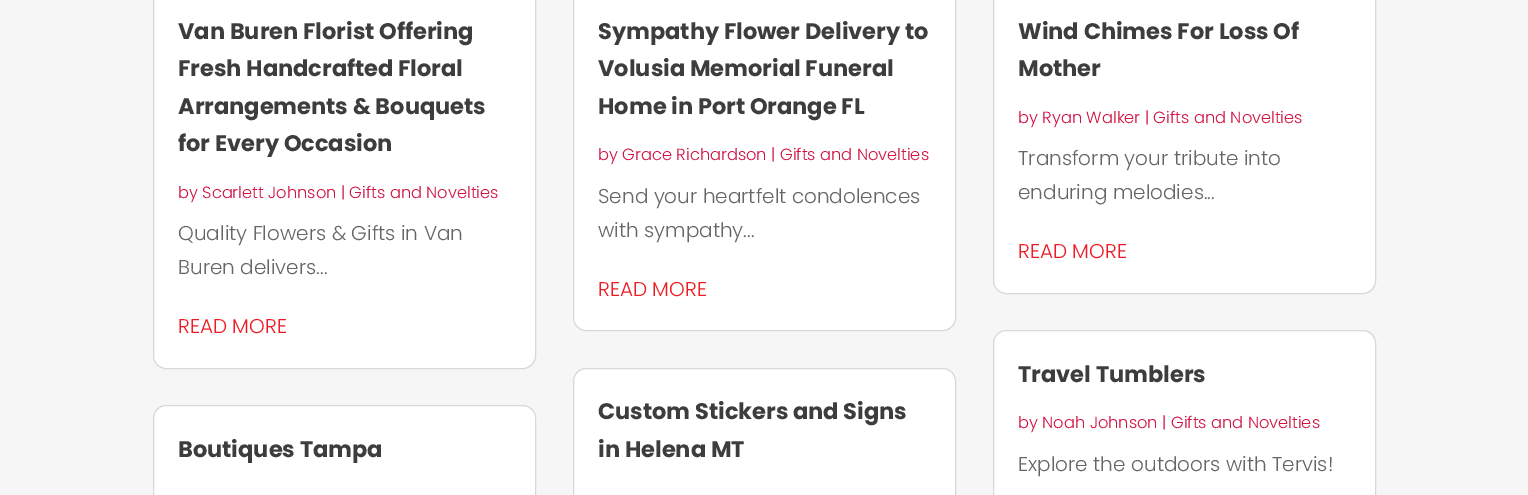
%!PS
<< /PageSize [1528 495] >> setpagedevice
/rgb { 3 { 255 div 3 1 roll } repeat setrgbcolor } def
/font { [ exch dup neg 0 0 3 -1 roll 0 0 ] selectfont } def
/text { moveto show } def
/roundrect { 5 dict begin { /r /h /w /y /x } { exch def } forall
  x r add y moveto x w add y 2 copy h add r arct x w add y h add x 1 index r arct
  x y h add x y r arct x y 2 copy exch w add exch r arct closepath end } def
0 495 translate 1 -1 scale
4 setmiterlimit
246 246 246 rgb
0 0 1528 495 rectfill
255 255 255 rgb
153.5 -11.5 382 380 12.5 roundrect gsave fill grestore
216 216 216 rgb
stroke
255 255 255 rgb
153.5 405.5 382 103 12.5 roundrect gsave fill grestore
216 216 216 rgb
stroke
255 255 255 rgb
573.5 -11.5 382 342 12.5 roundrect gsave fill grestore
216 216 216 rgb
stroke
255 255 255 rgb
573.5 368.5 382 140 12.5 roundrect gsave fill grestore
216 216 216 rgb
stroke
255 255 255 rgb
993.5 -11.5 382 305 12.5 roundrect gsave fill grestore
216 216 216 rgb
stroke
255 255 255 rgb
993.5 330.5 382 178 12.5 roundrect gsave fill grestore
216 216 216 rgb
stroke
/Poppins-Bold 22.5 font
61 61 61 rgb
(Van Buren Florist Offering) 178 39 text
(Fresh Handcrafted Floral) 178 76 text
(Arrangements & Bouquets) 178 114 text
(for Every Occasion) 178 151 text
/Poppins-Light 16.25 font
209 18 66 rgb
(by Scarlett Johnson | Gifts and Novelties) 178 198 text
/Poppins-Light 20 font
102 102 102 rgb
(Quality Flowers & Gifts in Van) 178 240 text
(Buren delivers...) 178 274 text
237 28 36 rgb
(READ MORE) 178 333 text
/Poppins-Bold 22.5 font
61 61 61 rgb
(Boutiques Tampa) 178 457 text
(Sympathy Flower Delivery to) 598 39 text
(Volusia Memorial Funeral) 598 76 text
(Home in Port Orange FL) 598 114 text
/Poppins-Light 16.25 font
209 18 66 rgb
(by Grace Richardson | Gifts and Novelties) 598 160 text
/Poppins-Light 20 font
102 102 102 rgb
(Send your heartfelt condolences) 598 203 text
(with sympathy...) 598 237 text
237 28 36 rgb
(READ MORE) 598 296 text
/Poppins-Bold 22.5 font
61 61 61 rgb
(Custom Stickers and Signs) 598 419 text
(in Helena MT) 598 457 text
(Wind Chimes For Loss Of) 1018 39 text
(Mother) 1018 76 text
/Poppins-Light 16.25 font
209 18 66 rgb
(by Ryan Walker | Gifts and Novelties) 1018 123 text
/Poppins-Light 20 font
102 102 102 rgb
(Transform your tribute into) 1018 165 text
(enduring melodies...) 1018 199 text
237 28 36 rgb
(READ MORE) 1018 258 text
/Poppins-Bold 22.5 font
61 61 61 rgb
(Travel Tumblers) 1018 382 text
/Poppins-Light 16.25 font
209 18 66 rgb
(by Noah Johnson | Gifts and Novelties) 1018 428 text
/Poppins-Light 20 font
102 102 102 rgb
(Explore the outdoors with Tervis!) 1018 471 text
showpage
